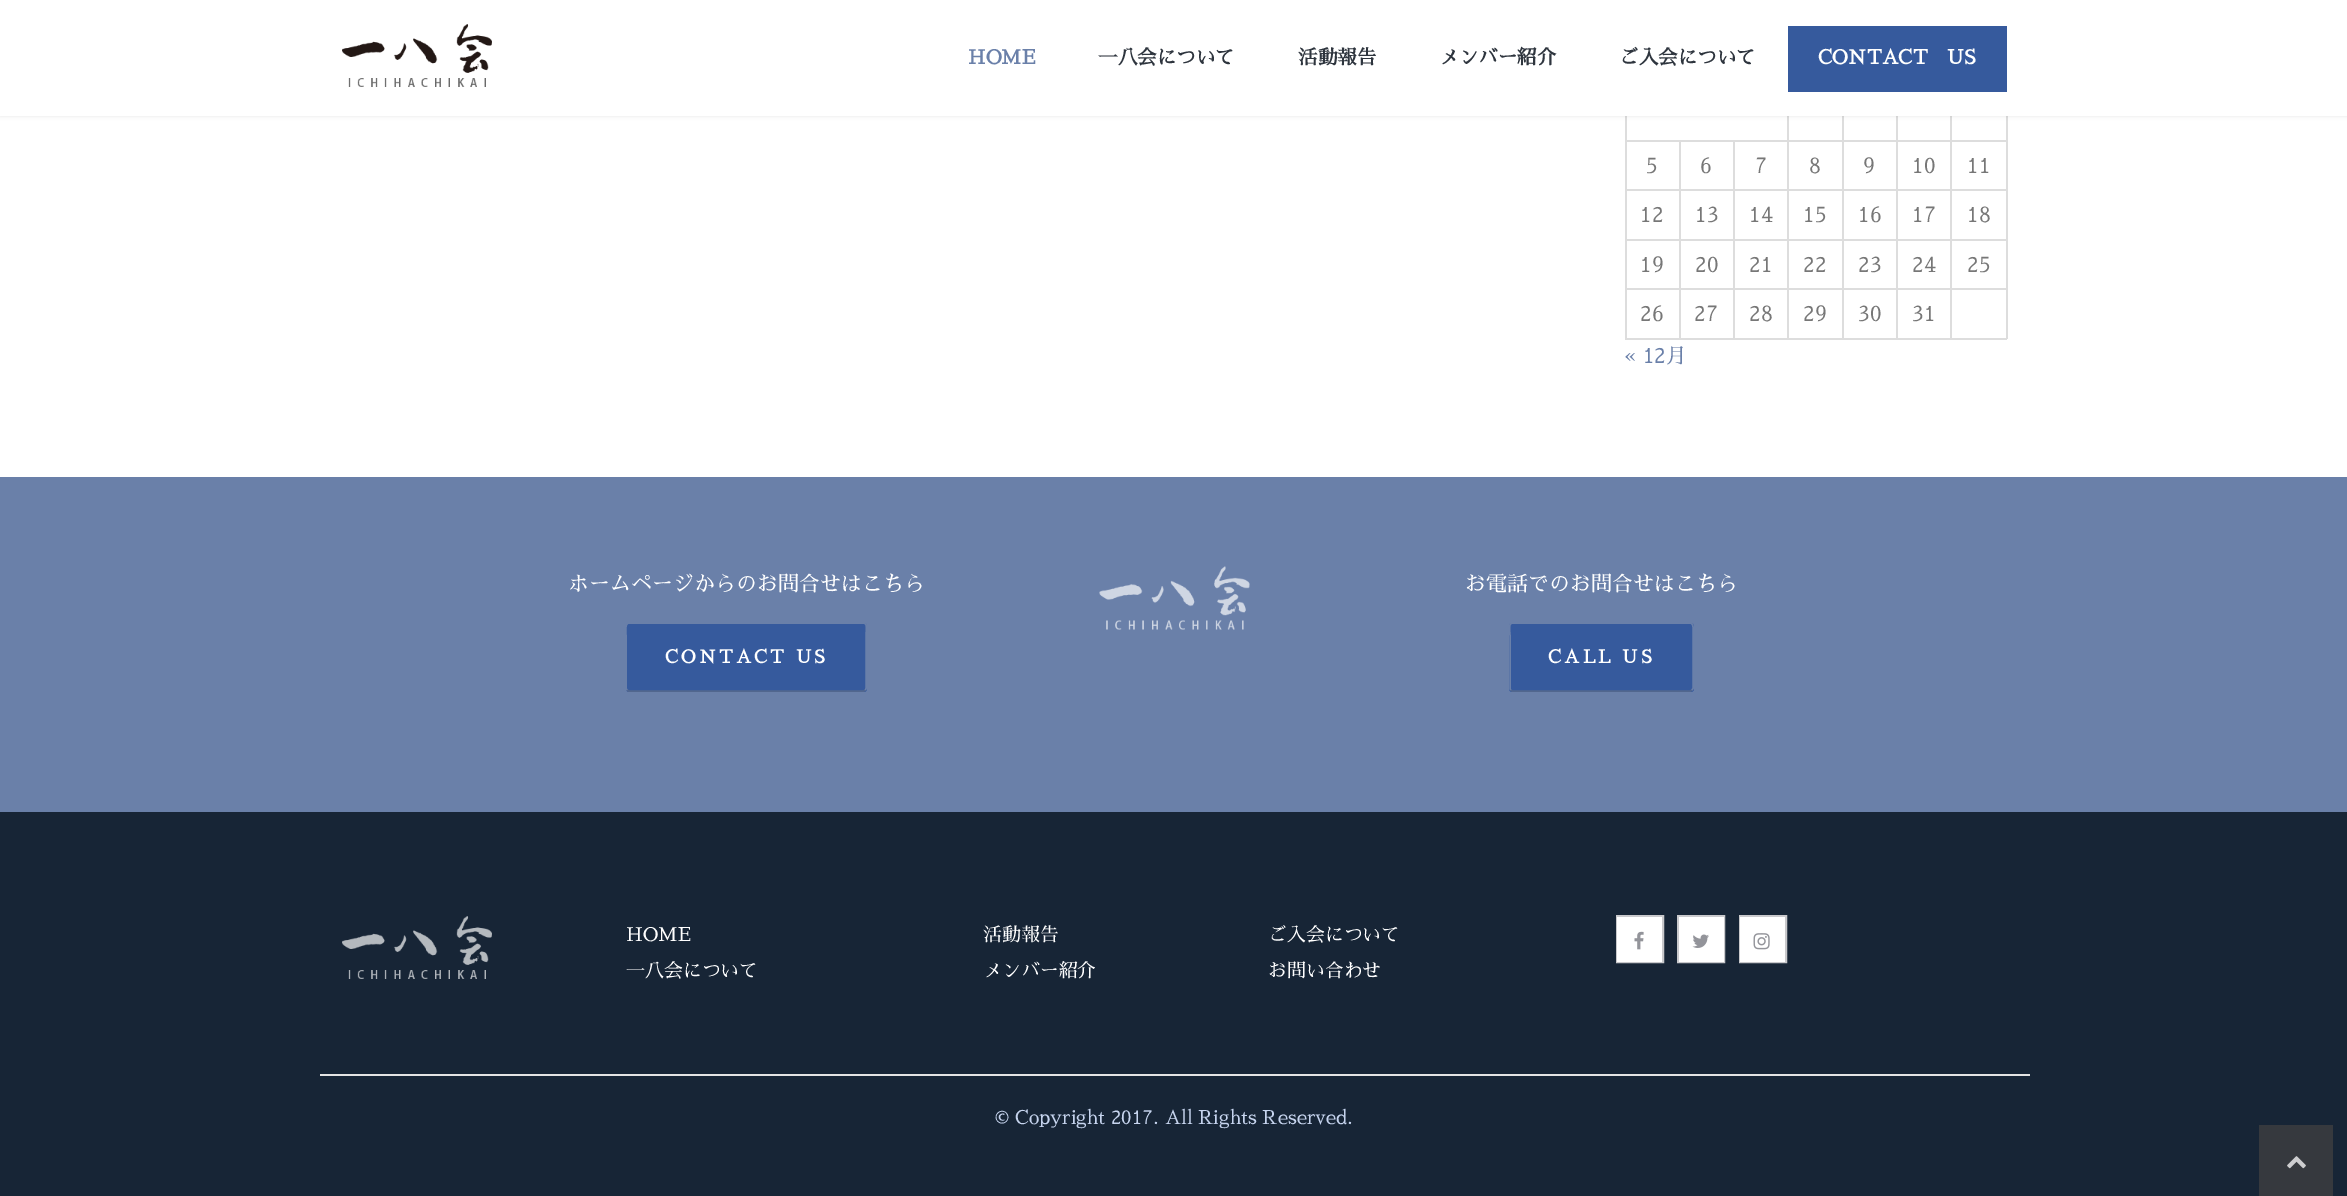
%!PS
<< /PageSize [2347 1196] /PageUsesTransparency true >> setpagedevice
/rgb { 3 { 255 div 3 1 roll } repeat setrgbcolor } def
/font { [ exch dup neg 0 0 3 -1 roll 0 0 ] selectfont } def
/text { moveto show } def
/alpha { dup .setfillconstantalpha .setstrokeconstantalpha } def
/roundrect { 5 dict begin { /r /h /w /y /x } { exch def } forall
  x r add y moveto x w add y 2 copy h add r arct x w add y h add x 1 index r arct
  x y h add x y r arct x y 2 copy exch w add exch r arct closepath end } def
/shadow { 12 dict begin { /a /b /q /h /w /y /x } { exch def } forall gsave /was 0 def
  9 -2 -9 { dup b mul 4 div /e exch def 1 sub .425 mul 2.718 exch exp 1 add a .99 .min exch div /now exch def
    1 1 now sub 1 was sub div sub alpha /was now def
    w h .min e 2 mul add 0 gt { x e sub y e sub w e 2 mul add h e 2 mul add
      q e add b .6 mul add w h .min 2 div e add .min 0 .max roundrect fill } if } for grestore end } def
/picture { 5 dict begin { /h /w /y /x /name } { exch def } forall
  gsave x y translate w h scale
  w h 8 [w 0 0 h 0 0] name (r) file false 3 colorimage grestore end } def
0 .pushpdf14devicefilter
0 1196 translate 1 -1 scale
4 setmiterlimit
255 255 255 rgb
0 0 2347 1196 rectfill
221 221 221 rgb
1950 140 57 2 rectfill
1950 189 57 2 rectfill
1950 239 57 2 rectfill
1950 288 57 2 rectfill
2006 288 2 51 rectfill
1950 338 57 2 rectfill
1950 288 2 51 rectfill
1896 288 56 2 rectfill
1950 239 2 51 rectfill
1896 239 56 2 rectfill
1950 189 2 51 rectfill
1896 189 56 2 rectfill
1950 140 2 51 rectfill
1896 140 56 2 rectfill
1896 338 56 2 rectfill
1896 288 2 51 rectfill
1842 288 56 2 rectfill
1896 239 2 51 rectfill
1842 239 56 2 rectfill
1896 189 2 51 rectfill
1842 189 56 2 rectfill
1896 140 2 51 rectfill
1842 140 56 2 rectfill
1842 338 56 2 rectfill
1842 288 2 51 rectfill
1787 288 57 2 rectfill
1842 239 2 51 rectfill
1787 239 57 2 rectfill
1842 189 2 51 rectfill
1787 189 57 2 rectfill
1842 140 2 51 rectfill
1787 140 57 2 rectfill
1787 338 57 2 rectfill
1787 288 2 51 rectfill
1733 288 55 2 rectfill
1787 239 2 51 rectfill
1733 239 55 2 rectfill
1787 189 2 51 rectfill
1733 189 55 2 rectfill
1787 140 2 51 rectfill
1733 140 55 2 rectfill
1787 116 2 25 rectfill
1842 116 2 25 rectfill
1896 116 2 25 rectfill
1950 116 2 25 rectfill
1733 338 55 2 rectfill
1733 288 2 51 rectfill
1679 288 55 2 rectfill
1733 239 2 51 rectfill
1679 239 55 2 rectfill
1733 189 2 51 rectfill
1679 189 55 2 rectfill
1733 140 2 51 rectfill
1679 140 55 2 rectfill
1679 338 55 2 rectfill
1679 288 2 51 rectfill
1625 288 55 2 rectfill
1679 239 2 51 rectfill
1625 239 55 2 rectfill
1679 189 2 51 rectfill
1625 189 55 2 rectfill
1679 140 2 51 rectfill
1625 140 55 2 rectfill
1625 338 55 2 rectfill
1625 288 2 51 rectfill
1625 239 2 51 rectfill
1625 189 2 51 rectfill
1625 116 2 75 rectfill
2006 239 2 51 rectfill
2006 189 2 51 rectfill
2006 116 2 75 rectfill
0 0 0 rgb
0 0 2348 116 0 2 0.1 shadow
255 255 255 rgb
0 0 2347 116 rectfill
(img_01.rgb) 342 24 150 63 picture
54 90 157 rgb
1788 26 219 66 rectfill
106 128 169 rgb
0 477 2347 335 rectfill
54 90 157 rgb
626 623 241 69 3 roundrect fill
82 103 142 rgb
1.5 setlinewidth
865.5 690 moveto -1.5 1 rlineto -235.5 0 rlineto -1.5 -1 rlineto stroke
106 128 169 rgb
627 690 moveto -1 -1.5 rlineto 0 -52.5 rlineto 0 -4.5 -1.5 -12.5 2.5 -13 rcurveto 235.5 0 rlineto 4 0.5 2 8.5 2 13 rcurveto 0 52.5 rlineto -0.5 1.5 rlineto stroke
(img_02.rgb) 1099 566 151 64 picture
54 90 157 rgb
1509 623 185 69 3 roundrect fill
82 103 142 rgb
1692 690 moveto -1.5 1 rlineto -178.5 0 rlineto -1.5 -1 rlineto stroke
106 128 169 rgb
1510.5 690 moveto -0.5 -1.5 rlineto 0 -52.5 rlineto 0 -4.5 -2 -12.5 2 -13 rcurveto 178.5 0 rlineto 4 0.5 2.5 8.5 2.5 13 rcurveto 0 52.5 rlineto -1 1.5 rlineto stroke
23 37 54 rgb
0 812 2347 384 rectfill
(img_03.rgb) 342 916 150 63 picture
201 201 204 rgb
2 setlinewidth
1617 916 46 46 rectstroke
255 255 255 rgb
1617 917 45 45 rectfill
(img_04.rgb) 1634 931 10 19 picture
201 201 204 rgb
1678 916 46 46 rectstroke
255 255 255 rgb
1679 917 45 45 rectfill
(img_05.rgb) 1692 934 17 14 picture
201 201 204 rgb
1740 916 46 46 rectstroke
255 255 255 rgb
1740 917 45 45 rectfill
(img_06.rgb) 1753 933 17 17 picture
228 228 228 rgb
320 1074 1710 2 rectfill
54 57 62 rgb
2259 1125 74 71 rectfill
(img_07.rgb) 2287 1156 19 13 picture
/SawarabiMincho-Bold 19.5 font
106 128 169 rgb
(HOME) 968 64 text
46 53 62 rgb
(一八会について) 1098 64 text
(活動報告) 1298 64 text
(メンバー紹介) 1439 64 text
(ご入会について) 1619 64 text
255 255 255 rgb
(CONTACT　US) 1818 64 text
/SawarabiMincho-Regular 21 font
119 119 119 rgb
(5) 1646 173 text
(6) 1700 173 text
(7) 1755 173 text
(8) 1809 173 text
(9) 1863 173 text
(10) 1912 173 text
(11) 1967 173 text
(12) 1640 222 text
(13) 1695 222 text
(14) 1749 222 text
(15) 1803 222 text
(16) 1858 222 text
(17) 1912 222 text
(18) 1967 222 text
(19) 1640 272 text
(20) 1695 272 text
(21) 1749 272 text
(22) 1803 272 text
(23) 1858 272 text
(24) 1912 272 text
(25) 1967 272 text
(26) 1640 321 text
(27) 1694 321 text
(28) 1749 321 text
(29) 1803 321 text
(30) 1858 321 text
(31) 1912 321 text
106 128 169 rgb
(« 12月) 1624 363 text
255 255 255 rgb
(ホームページからのお問合せはこちら) 568 591 text
/SawarabiMincho-Bold 18 font
665 663 moveto 3 0 (CONTACT US) ashow
/SawarabiMincho-Regular 21 font
(お電話でのお問合せはこちら) 1465 591 text
/SawarabiMincho-Bold 18 font
1548 663 moveto 3 0 (CALL US) ashow
/SawarabiMincho-Regular 18.9 font
(HOME) 626 941 text
(一八会について) 626 977 text
(活動報告) 983 941 text
(メンバー紹介) 983 977 text
(ご入会について) 1268 941 text
(お問い合わせ) 1268 977 text
198 212 238 rgb
(© Copyright 2017. All Rights Reserved.) 995 1124 text
.poppdf14devicefilter showpage
